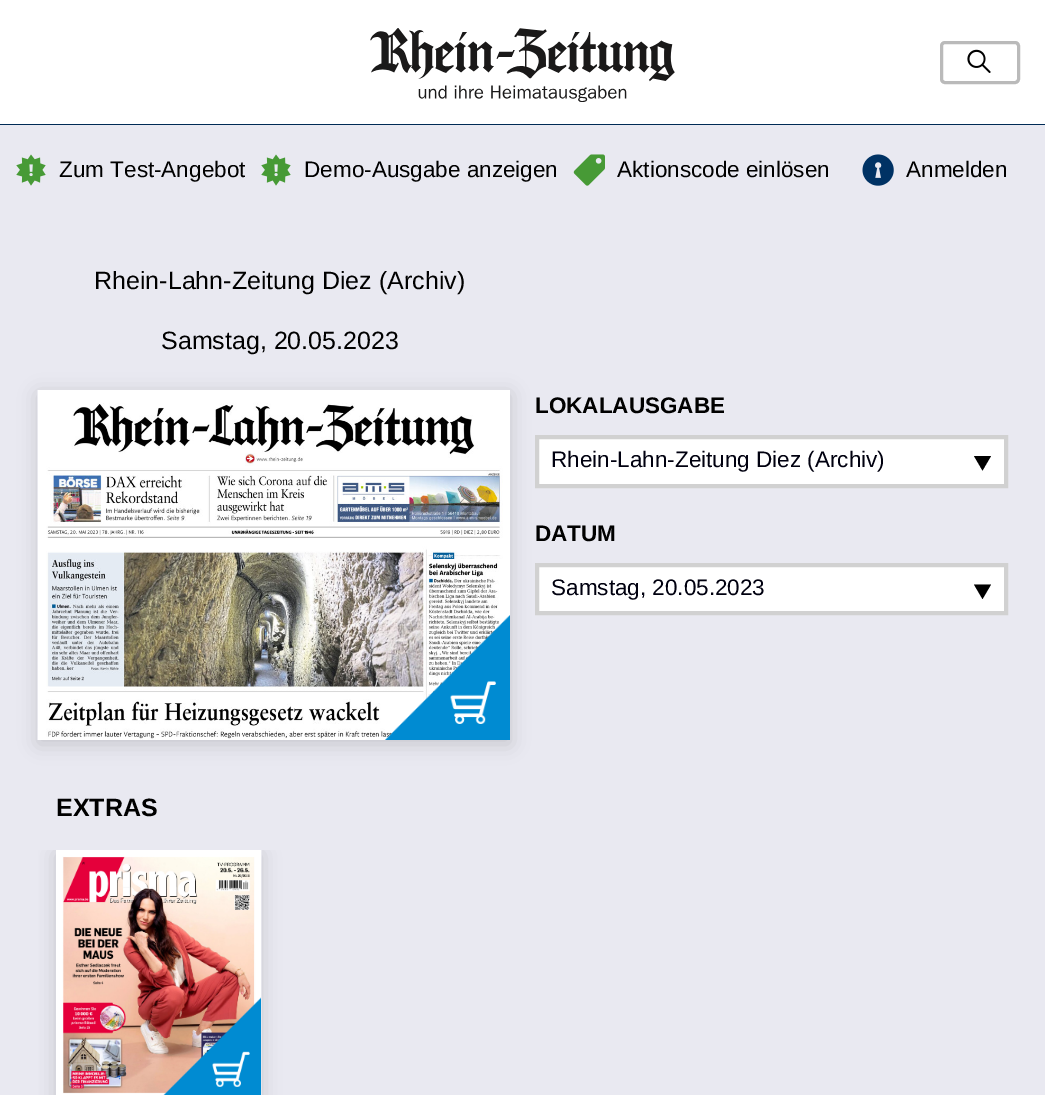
%!PS
<< /PageSize [1045 1095] /PageUsesTransparency true >> setpagedevice
/rgb { 3 { 255 div 3 1 roll } repeat setrgbcolor } def
/font { [ exch dup neg 0 0 3 -1 roll 0 0 ] selectfont } def
/text { moveto show } def
/alpha { dup .setfillconstantalpha .setstrokeconstantalpha } def
/roundrect { 5 dict begin { /r /h /w /y /x } { exch def } forall
  x r add y moveto x w add y 2 copy h add r arct x w add y h add x 1 index r arct
  x y h add x y r arct x y 2 copy exch w add exch r arct closepath end } def
/shadow { 12 dict begin { /a /b /q /h /w /y /x } { exch def } forall gsave /was 0 def
  9 -2 -9 { dup b mul 4 div /e exch def 1 sub .425 mul 2.718 exch exp 1 add a .99 .min exch div /now exch def
    1 1 now sub 1 was sub div sub alpha /was now def
    w h .min e 2 mul add 0 gt { x e sub y e sub w e 2 mul add h e 2 mul add
      q e add b .6 mul add w h .min 2 div e add .min 0 .max roundrect fill } if } for grestore end } def
/picture { 5 dict begin { /h /w /y /x /name } { exch def } forall
  gsave x y translate w h scale
  w h 8 [w 0 0 h 0 0] name (r) file false 3 colorimage grestore end } def
0 .pushpdf14devicefilter
0 1095 translate 1 -1 scale
4 setmiterlimit
233 233 241 rgb
0 0 1045 1095 rectfill
255 255 255 rgb
0 0 1045 124 rectfill
0 43 85 rgb
0 124 1045 1 rectfill
(img_01.rgb) 370 28 305 74 picture
186 186 186 rgb
3 setlinewidth
941.5 42.5 77 40 3.5 roundrect stroke
(img_02.rgb) 967 49 24 24 picture
(img_03.rgb) 16 154 30 32 picture
(img_03.rgb) 261 154 30 32 picture
(img_04.rgb) 573 154 32 32 picture
(img_05.rgb) 862 154 32 32 picture
0 0 0 rgb
38 394 472 350 0 9.5 0.15 shadow
(img_06.rgb) 37 390 473 350 picture
(img_07.rgb) 385 615 125 125 picture
255 255 255 rgb
537 437 moveto 469 0 rlineto 0 49 rlineto -469 0 rlineto closepath gsave fill grestore
209 209 209 rgb
4 setlinewidth
stroke
0 0 0 rgb
974 456 moveto 17 0 rlineto -8.5 14.5 rlineto closepath fill
255 255 255 rgb
537 565 moveto 469 0 rlineto 0 48 rlineto -469 0 rlineto closepath gsave fill grestore
209 209 209 rgb
stroke
0 0 0 rgb
974 584.5 moveto 17 0 rlineto -8.5 14.5 rlineto closepath fill
gsave
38 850 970 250 rectclip
56 854 205 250 0 9.5 0.15 shadow
grestore
(img_08.rgb) 56 850 206 245 picture
(img_09.rgb) 163 997 98 98 picture
/LiberationSans-Regular 22.5 font
(Zum Test-Angebot) 59 177 text
(Demo-Ausgabe anzeigen) 304 177 text
(Aktionscode einlösen) 617 177 text
(Anmelden) 906 177 text
/LiberationSans-Regular 25 font
(Rhein-Lahn-Zeitung Diez \(Archiv\)) 94 289 text
(Samstag, 20.05.2023) 161 349 text
/LiberationSans-Bold 22.5 font
(LOKALAUSGABE) 535 413 text
/LiberationSans-Regular 22.5 font
0 0 15 rgb
(Rhein-Lahn-Zeitung Diez \(Archiv\)) 551 467 text
/LiberationSans-Bold 22.5 font
0 0 0 rgb
(DATUM) 535 541 text
/LiberationSans-Regular 22.5 font
0 0 15 rgb
(Samstag, 20.05.2023) 551 595 text
/LiberationSans-Bold 25 font
0 0 0 rgb
(EXTRAS) 56 816 text
.poppdf14devicefilter showpage
